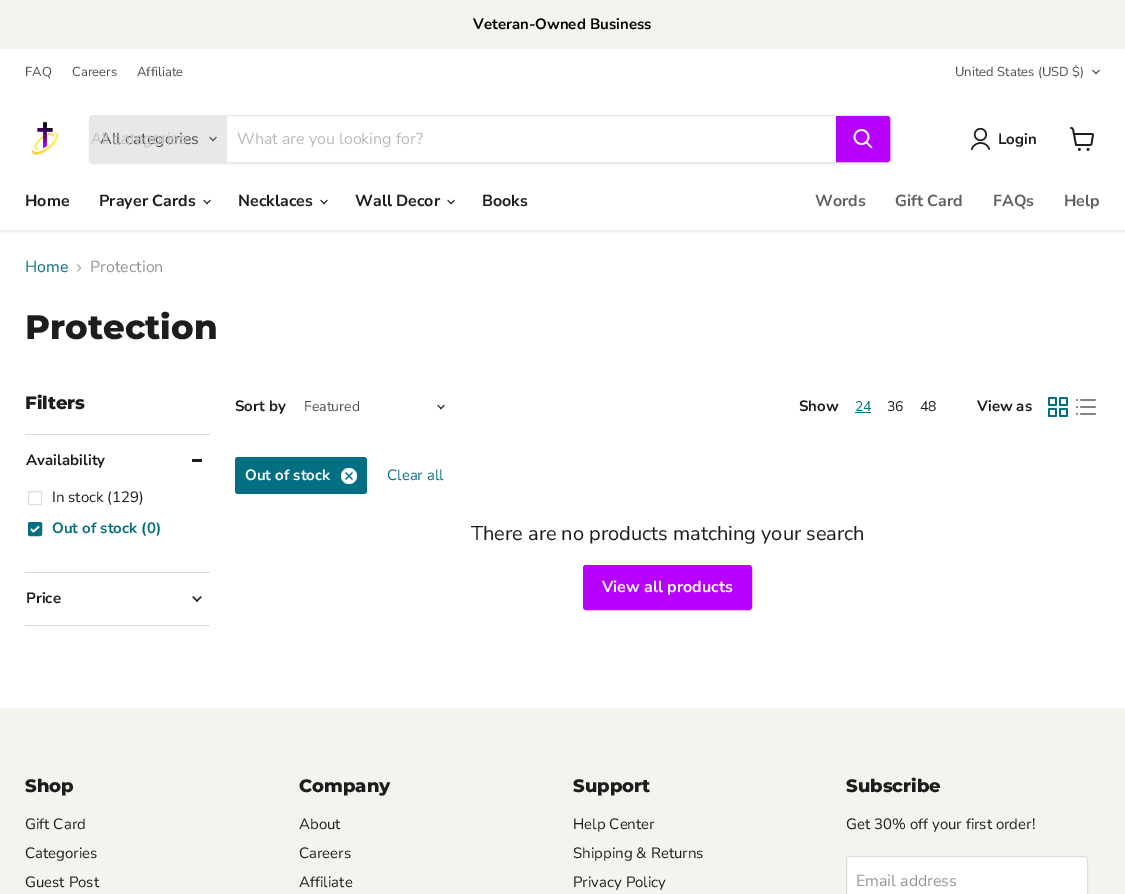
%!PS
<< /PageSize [1125 894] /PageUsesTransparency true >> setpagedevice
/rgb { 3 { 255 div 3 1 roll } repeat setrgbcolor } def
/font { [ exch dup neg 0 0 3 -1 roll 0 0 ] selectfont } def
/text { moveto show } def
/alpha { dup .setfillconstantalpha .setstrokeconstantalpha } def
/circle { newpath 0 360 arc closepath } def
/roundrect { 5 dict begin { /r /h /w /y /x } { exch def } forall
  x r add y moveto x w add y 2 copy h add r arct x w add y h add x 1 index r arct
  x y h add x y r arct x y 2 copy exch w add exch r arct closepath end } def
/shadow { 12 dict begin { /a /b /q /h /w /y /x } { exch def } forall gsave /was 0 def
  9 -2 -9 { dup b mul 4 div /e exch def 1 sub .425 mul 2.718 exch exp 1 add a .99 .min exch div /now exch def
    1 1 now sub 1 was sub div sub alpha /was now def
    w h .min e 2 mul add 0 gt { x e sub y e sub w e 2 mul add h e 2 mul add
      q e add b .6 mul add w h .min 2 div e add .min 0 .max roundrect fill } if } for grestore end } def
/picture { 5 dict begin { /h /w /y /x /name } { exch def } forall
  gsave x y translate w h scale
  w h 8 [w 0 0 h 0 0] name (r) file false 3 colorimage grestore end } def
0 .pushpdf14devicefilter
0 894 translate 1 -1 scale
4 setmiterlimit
255 255 255 rgb
0 0 1125 894 rectfill
245 243 237 rgb
0 0 1125 49 rectfill
gsave
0 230 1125 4 rectclip
128 128 128 rgb
0 97 1125 134 0 2 0.25 shadow
grestore
255 255 255 rgb
0 94 1125 2 rectfill
(img_01.rgb) 1092 69 8 6 picture
(img_02.rgb) 32 122 27 33 picture
gsave
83 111 moveto 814 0 rlineto 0 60 rlineto -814 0 rlineto closepath 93 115 moveto 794 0 rlineto 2 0 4 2 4 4 rcurveto 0 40 rlineto 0 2 -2 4 -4 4 rcurveto -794 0 rlineto -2 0 -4 -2 -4 -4 rcurveto 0 -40 rlineto 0 -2 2 -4 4 -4 rcurveto closepath eoclip newpath
128 128 128 rgb
89 117 802 48 4 1.5 0.11 shadow
grestore
0.2 alpha
128 128 128 rgb
89.5 115.5 801 47 3.5 roundrect stroke
1 alpha
232 232 232 rgb
93 116 moveto 134 0 rlineto 0 46 rlineto -134 0 rlineto -1.5 0 -3 -1.5 -3 -3 rcurveto 0 -40 rlineto 0 -1.5 1.5 -3 3 -3 rcurveto closepath fill
(img_03.rgb) 209 136 8 6 picture
184 0 255 rgb
836.5 116.5 moveto 50.5 0 rlineto 1.5 0 2.5 1 2.5 2.5 rcurveto 0 40 rlineto 0 1.5 -1 2.5 -2.5 2.5 rcurveto -50.5 0 rlineto closepath gsave fill grestore
stroke
255 255 255 rgb
1.7 setlinewidth
1 setlinecap
871.5 147.5 moveto -5 -5 rlineto stroke
0 setlinecap
861.5 137 7 circle stroke
(img_04.rgb) 970 127 20 24 picture
(img_05.rgb) 1070 127 24 24 picture
(img_06.rgb) 203 199 8 6 picture
(img_06.rgb) 320 199 8 6 picture
(img_06.rgb) 447 199 8 6 picture
(img_07.rgb) 77 264 5 8 picture
217 217 217 rgb
25 434 185 1 rectfill
29 29 29 rgb
192 459 10 3 rectfill
221 221 221 rgb
1 setlinewidth
28.5 491.5 13 13 1.5 roundrect stroke
4 110 130 rgb
28.5 522.5 13 13 1.5 roundrect gsave fill grestore
stroke
255 255 255 rgb
1.7 setlinewidth
31 529 moveto 2.5 2.5 rlineto 5.5 -5 rlineto stroke
217 217 217 rgb
25 572 185 1 rectfill
25 625 185 1 rectfill
(img_08.rgb) 192 596 10 6 picture
(img_06.rgb) 437 404 8 6 picture
4 110 130 rgb
855 412 16 1 rectfill
(img_09.rgb) 1048 397 20 20 picture
(img_10.rgb) 1076 399 20 16 picture
235 457 132 37 3 roundrect fill
255 255 255 rgb
349 476 8 circle fill
(img_11.rgb) 345 472 8 8 picture
184 0 255 rgb
583.5 565.5 168 44 2.5 roundrect gsave fill grestore
1 setlinewidth
stroke
245 243 237 rgb
0 708 1125 186 rectfill
255 255 255 rgb
846.5 856.5 241 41 2.5 roundrect gsave fill grestore
221 221 221 rgb
stroke
/NunitoSans-Bold 15 font
0 0 0 rgb
(Veteran-Owned Business) 473 29 text
/NunitoSans-Regular 13 font
77 77 77 rgb
(FAQ) 25 76 text
(Careers) 72 76 text
(Affiliate) 137 76 text
(United States \(USD $\)) 955 76 text
/NunitoSans-Regular 16 font
(All categories) 100 144 text
/LiberationSans-Regular 16 font
196 196 196 rgb
(All categories) 91 144 text
/NunitoSans-Regular 16 font
184 184 184 rgb
(What are you looking for?) 237 144 text
/NunitoSans-Bold 15 font
29 29 29 rgb
(Login) 998 144 text
/NunitoSans-Bold 16 font
(Home) 25 206 text
(Prayer Cards) 99 206 text
(Necklaces) 238 206 text
(Wall Decor) 355 206 text
(Books) 482 206 text
97 97 97 rgb
(Words) 815 206 text
(Gift Card) 895 206 text
(FAQs) 993 206 text
(Help) 1064 206 text
/NunitoSans-Regular 16 font
4 110 130 rgb
(Home) 25 272 text
148 148 148 rgb
(Protection) 90 272 text
/Montserrat-ExtraBold 34 font
29 29 29 rgb
(Protection) 25 339 text
/Montserrat-ExtraBold 18 font
(Filters) 25 409 text
/NunitoSans-Bold 15 font
(Availability) 26 465 text
/NunitoSans-Regular 15 font
(In stock \(129\)) 52 502 text
/NunitoSans-Bold 15 font
4 110 130 rgb
(Out of stock \(0\)) 52 533 text
29 29 29 rgb
(Price) 26 603 text
(Sort by) 235 411 text
/NunitoSans-Regular 14 font
77 77 77 rgb
(Featured) 304 411 text
/NunitoSans-Bold 15 font
29 29 29 rgb
(Show) 799 411 text
/NunitoSans-Regular 14 font
4 110 130 rgb
(24) 855 411 text
29 29 29 rgb
(36) 887 411 text
(48) 920 411 text
/NunitoSans-Bold 15 font
(View as) 977 411 text
255 255 255 rgb
(Out of stock) 245 480 text
/NunitoSans-Regular 15 font
4 110 130 rgb
(Clear all) 387 480 text
/NunitoSans-Regular 20 font
29 29 29 rgb
(There are no products matching your search) 471 540 text
/NunitoSans-Bold 16 font
255 255 255 rgb
(View all products) 602 592 text
/Montserrat-ExtraBold 18 font
29 29 29 rgb
(Shop) 25 792 text
/NunitoSans-Regular 15 font
(Gift Card) 25 829 text
(Categories) 25 858 text
(Guest Post) 25 887 text
/Montserrat-ExtraBold 18 font
(Company) 299 792 text
/NunitoSans-Regular 15 font
(About) 299 829 text
(Careers) 299 858 text
(Affiliate) 299 887 text
/Montserrat-ExtraBold 18 font
(Support) 573 792 text
/NunitoSans-Regular 15 font
(Help Center) 573 829 text
(Shipping & Returns) 573 858 text
(Privacy Policy) 573 887 text
/Montserrat-ExtraBold 18 font
(Subscribe) 846 792 text
/NunitoSans-Regular 15 font
(Get 30% off your first order!) 846 829 text
/NunitoSans-Regular 16 font
148 148 148 rgb
(Email address) 856 886 text
.poppdf14devicefilter showpage
